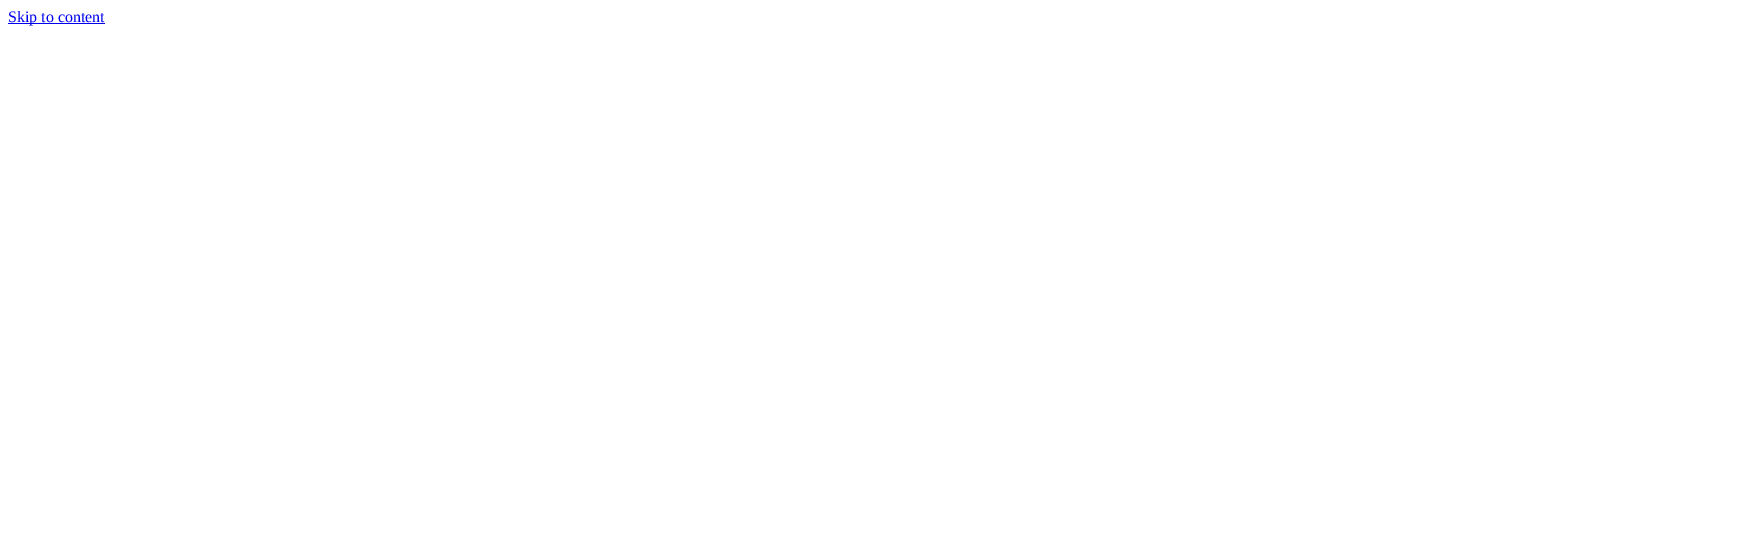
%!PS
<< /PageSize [1760 538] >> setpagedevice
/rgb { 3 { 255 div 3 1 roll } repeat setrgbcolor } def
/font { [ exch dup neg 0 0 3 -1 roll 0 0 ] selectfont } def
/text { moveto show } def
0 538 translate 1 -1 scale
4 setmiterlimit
255 255 255 rgb
0 0 1760 538 rectfill
0 0 238 rgb
8 23 97 1 rectfill
/LiberationSerif-Regular 16 font
(Skip to content) 8 22 text
showpage
